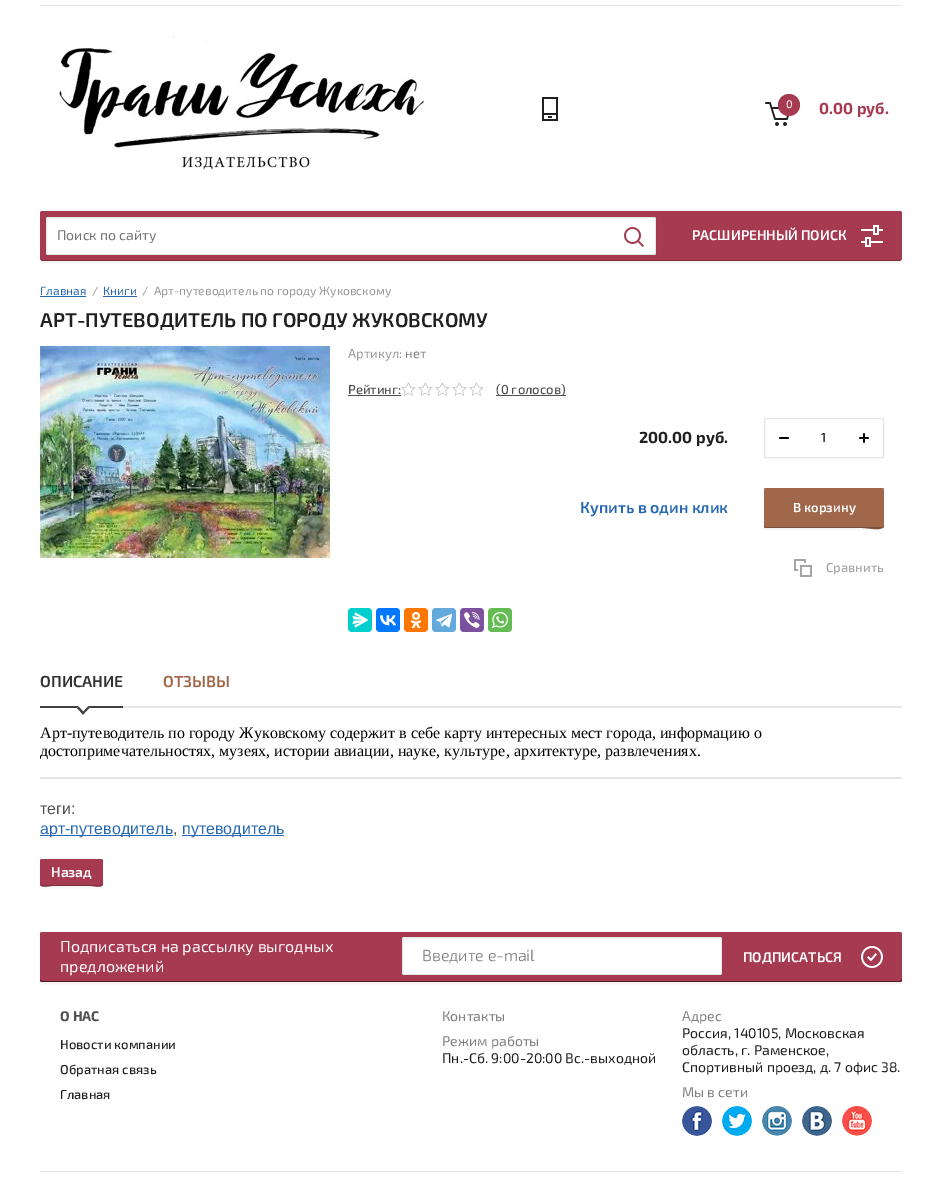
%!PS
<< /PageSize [942 1178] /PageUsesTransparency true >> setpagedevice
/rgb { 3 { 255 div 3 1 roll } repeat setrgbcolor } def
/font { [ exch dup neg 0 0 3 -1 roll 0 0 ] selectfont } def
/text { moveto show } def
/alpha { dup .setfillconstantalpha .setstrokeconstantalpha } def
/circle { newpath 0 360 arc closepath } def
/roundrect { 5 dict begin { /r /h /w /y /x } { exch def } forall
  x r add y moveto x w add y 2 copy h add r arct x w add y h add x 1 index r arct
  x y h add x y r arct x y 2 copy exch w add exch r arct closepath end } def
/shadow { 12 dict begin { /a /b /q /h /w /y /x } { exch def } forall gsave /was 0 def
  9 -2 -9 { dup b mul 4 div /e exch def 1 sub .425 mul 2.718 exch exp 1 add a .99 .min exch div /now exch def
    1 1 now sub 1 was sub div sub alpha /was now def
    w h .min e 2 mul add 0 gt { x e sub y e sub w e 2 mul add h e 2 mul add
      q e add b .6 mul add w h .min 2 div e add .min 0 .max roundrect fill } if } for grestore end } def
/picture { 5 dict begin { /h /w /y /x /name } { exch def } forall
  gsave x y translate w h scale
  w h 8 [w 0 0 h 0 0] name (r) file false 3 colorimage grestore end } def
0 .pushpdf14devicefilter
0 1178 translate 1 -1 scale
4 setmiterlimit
255 255 255 rgb
0 0 942 1178 rectfill
229 229 229 rgb
40 5 862 1 rectfill
(img_01.rgb) 59 35 365 135 picture
(img_02.rgb) 542 97 16 24 picture
(img_03.rgb) 765 102 25 24 picture
166 58 80 rgb
789 105 11 circle fill
0 0 0 rgb
40 213 862 50 3 1 0.05 shadow
166 58 80 rgb
42 211 moveto 858 0 rlineto 1 0 2 1 2 2 rcurveto 0 45 rlineto 0 1.5 -1.5 3 -3 3 rcurveto -856 0 rlineto -1.5 0 -3 -1.5 -3 -3 rcurveto 0 -45 rlineto 0 -1 1 -2 2 -2 rcurveto closepath fill
0.2 alpha
0 0 0 rgb
40 257 moveto 0 2 1 4 3 4 rcurveto 856 0 rlineto 2 0 3 -2 3 -4 rcurveto 0 2 -1 3 -3 3 rcurveto -856 0 rlineto -2 0 -3 -1 -3 -3 rcurveto closepath fill
1 alpha
255 255 255 rgb
46 217 610 38 2 roundrect fill
0.1 alpha
0 0 0 rgb
46.5 217.5 609 37 1.5 roundrect stroke
1 alpha
(img_04.rgb) 624 227 20 20 picture
(img_05.rgb) 861 225 22 22 picture
37 103 179 rgb
40 296 46 1 rectfill
103 296 34 1 rectfill
(img_06.rgb) 40 346 290 212 picture
80 80 80 rgb
348 395 53 1 rectfill
(img_07.rgb) 401 382 83 14 picture
496 395 70 1 rectfill
229 229 229 rgb
764.5 418.5 119 39 1.5 roundrect stroke
(img_08.rgb) 779 437 10 2 picture
(img_09.rgb) 859 433 10 10 picture
0 0 0 rgb
764 490 120 40 2 1 0.05 shadow
161 103 74 rgb
764 488 120 40 2 roundrect fill
126 81 58 rgb
764 525 moveto 0 1 0 2 1 3 rcurveto 98 0 rlineto 6 0 21 4 21 -3 rcurveto 0 1 -1 2 -2 2 rcurveto -116 0 rlineto -2 -1 rlineto closepath fill
(img_10.rgb) 794 559 18 18 picture
3 206 206 rgb
348 608 24 24 4 roundrect fill
(img_11.rgb) 352 612 16 16 picture
0 119 255 rgb
376 608 24 24 4 roundrect fill
(img_12.rgb) 380 615 16 11 picture
255 119 0 rgb
404 608 24 24 4 roundrect fill
(img_13.rgb) 410 612 12 16 picture
100 169 220 rgb
432 608 24 24 4 roundrect fill
(img_14.rgb) 436 614 16 14 picture
123 81 157 rgb
460 608 24 24 4 roundrect fill
(img_15.rgb) 464 612 16 16 picture
101 188 84 rgb
488 608 24 24 4 roundrect fill
(img_16.rgb) 492 612 16 16 picture
229 229 229 rgb
123 706 779 2 rectfill
64 64 64 rgb
40 706 83 2 rectfill
255 255 255 rgb
83 714.5 moveto -6 -6.5 rlineto 6 -6.5 rlineto 6.5 6.5 rlineto closepath fill
64 64 64 rgb
83 714.5 moveto -6 -6.5 rlineto 1.5 -1.5 rlineto 6 6.5 rlineto closepath fill
83 714.5 moveto -1 -1.5 rlineto 6 -6.5 rlineto 1.5 1.5 rlineto closepath fill
229 229 229 rgb
40 777 862 2 rectfill
37 103 179 rgb
40 835 133 1 rectfill
182 835 102 1 rectfill
0 0 0 rgb
40 861 63 27 2 1 0.05 shadow
166 58 80 rgb
40 859 63 27 2 roundrect fill
128 45 62 rgb
40 883 moveto 0 6 8 3 12 3 rcurveto 39 0 rlineto 4 0 12 3 12 -3 rcurveto 0 1 -1 2 -2 2 rcurveto -59 0 rlineto -1 0 -2 -1 -2 -2 rcurveto closepath fill
0 0 0 rgb
40 934 862 50 2 1 0.05 shadow
166 58 80 rgb
40 932 862 50 2 roundrect fill
0.5 alpha
0 0 0 rgb
40 979 moveto 0 1 0 3 2 3 rcurveto 858 0 rlineto 2 0 2 -2 2 -3 rcurveto 0 1 -1 2 -2 2 rcurveto -858 0 rlineto -1 0 -2 -1 -2 -2 rcurveto closepath fill
1 alpha
255 255 255 rgb
402 937 320 38 2 roundrect fill
0.1 alpha
0 0 0 rgb
402.5 937.5 319 37 1.5 roundrect stroke
1 alpha
(img_17.rgb) 861 946 22 22 picture
(img_18.rgb) 682 1106 30 30 picture
(img_19.rgb) 722 1106 30 30 picture
(img_20.rgb) 762 1106 30 30 picture
(img_21.rgb) 802 1106 30 30 picture
(img_22.rgb) 842 1106 30 30 picture
229 229 229 rgb
40 1171 862 1 rectfill
/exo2-Regular 11 font
255 255 255 rgb
(0) 786 108 text
/exo2-Bold 16 font
166 58 80 rgb
(0.00 руб.) 819 114 text
/exo2-Regular 14 font
117 117 117 rgb
(Поиск по сайту) 57 240 text
/Exo2-SemiBold 14 font
255 255 255 rgb
(РАСШИРЕННЫЙ ПОИСК) 692 240 text
/exo2-Regular 12 font
37 103 179 rgb
(Главная) 40 295 text
149 149 149 rgb
(/) 92 295 text
37 103 179 rgb
(Книги) 103 295 text
149 149 149 rgb
(/  Арт-путеводитель по городу Жуковскому) 142 295 text
/Exo2-SemiBold 20 font
32 32 32 rgb
(АРТ-ПУТЕВОДИТЕЛЬ ПО ГОРОДУ ЖУКОВСКОМУ) 40 327 text
/exo2-Regular 13 font
149 149 149 rgb
(Артикул:) 348 358 text
128 128 128 rgb
(нет) 405 358 text
/Exo2-Medium 13 font
80 80 80 rgb
(Рейтинг:) 348 394 text
(\(0 голосов\)) 496 394 text
/exo2-Bold 16 font
32 32 32 rgb
(200.00 руб.) 639 443 text
/Exo2-Medium 13 font
0 0 0 rgb
(1) 821 442 text
/Exo2-SemiBold 16 font
37 103 179 rgb
(Купить в один клик) 580 513 text
/Exo2-SemiBold 13 font
255 255 255 rgb
(В корзину) 793 512 text
/Exo2-Medium 13 font
165 165 165 rgb
(Сравнить) 826 572 text
/Exo2-SemiBold 16 font
49 49 49 rgb
(ОПИСАНИЕ) 40 687 text
161 103 74 rgb
(ОТЗЫВЫ) 163 687 text
/LiberationSerif-Regular 16 font
0 0 0 rgb
(Арт-путеводитель по городу Жуковскому содержит в себе карту интересных мест города, информацию о) 40 738 text
(достопримечательностях, музеях, истории авиации, науке, культуре, архитектуре, развлечениях.) 40 756 text
/LiberationSans-Regular 16 font
80 80 80 rgb
(теги:) 40 814 text
37 103 179 rgb
(арт-путеводитель) 40 834 text
80 80 80 rgb
(,) 173 834 text
37 103 179 rgb
(путеводитель) 182 834 text
/Exo2-SemiBold 14 font
255 255 255 rgb
(Назад) 51 877 text
/exo2-Regular 16 font
(Подписаться на рассылку выгодных) 60 952 text
(предложений) 60 972 text
/Exo2-Light 16 font
117 117 117 rgb
(Введите e-mail) 422 961 text
/Exo2-SemiBold 14 font
255 255 255 rgb
(ПОДПИСАТЬСЯ) 743 962 text
/exo2-Bold 14 font
80 80 80 rgb
(О НАС) 60 1021 text
/Exo2-Medium 13 font
32 32 32 rgb
(Новости компании) 60 1049 text
(Обратная связь) 60 1074 text
(Главная) 60 1099 text
/exo2-Regular 14 font
128 128 128 rgb
(Контакты) 442 1021 text
(Режим работы) 442 1046 text
32 32 32 rgb
(Пн.-Сб. 9:00-20:00 Вс.-выходной) 442 1063 text
128 128 128 rgb
(Адрес) 682 1021 text
32 32 32 rgb
(Россия, 140105, Московская) 682 1038 text
(область, г. Раменское,) 682 1055 text
(Спортивный проезд, д. 7 офис 38.) 682 1072 text
128 128 128 rgb
(Мы в сети) 682 1097 text
.poppdf14devicefilter showpage
